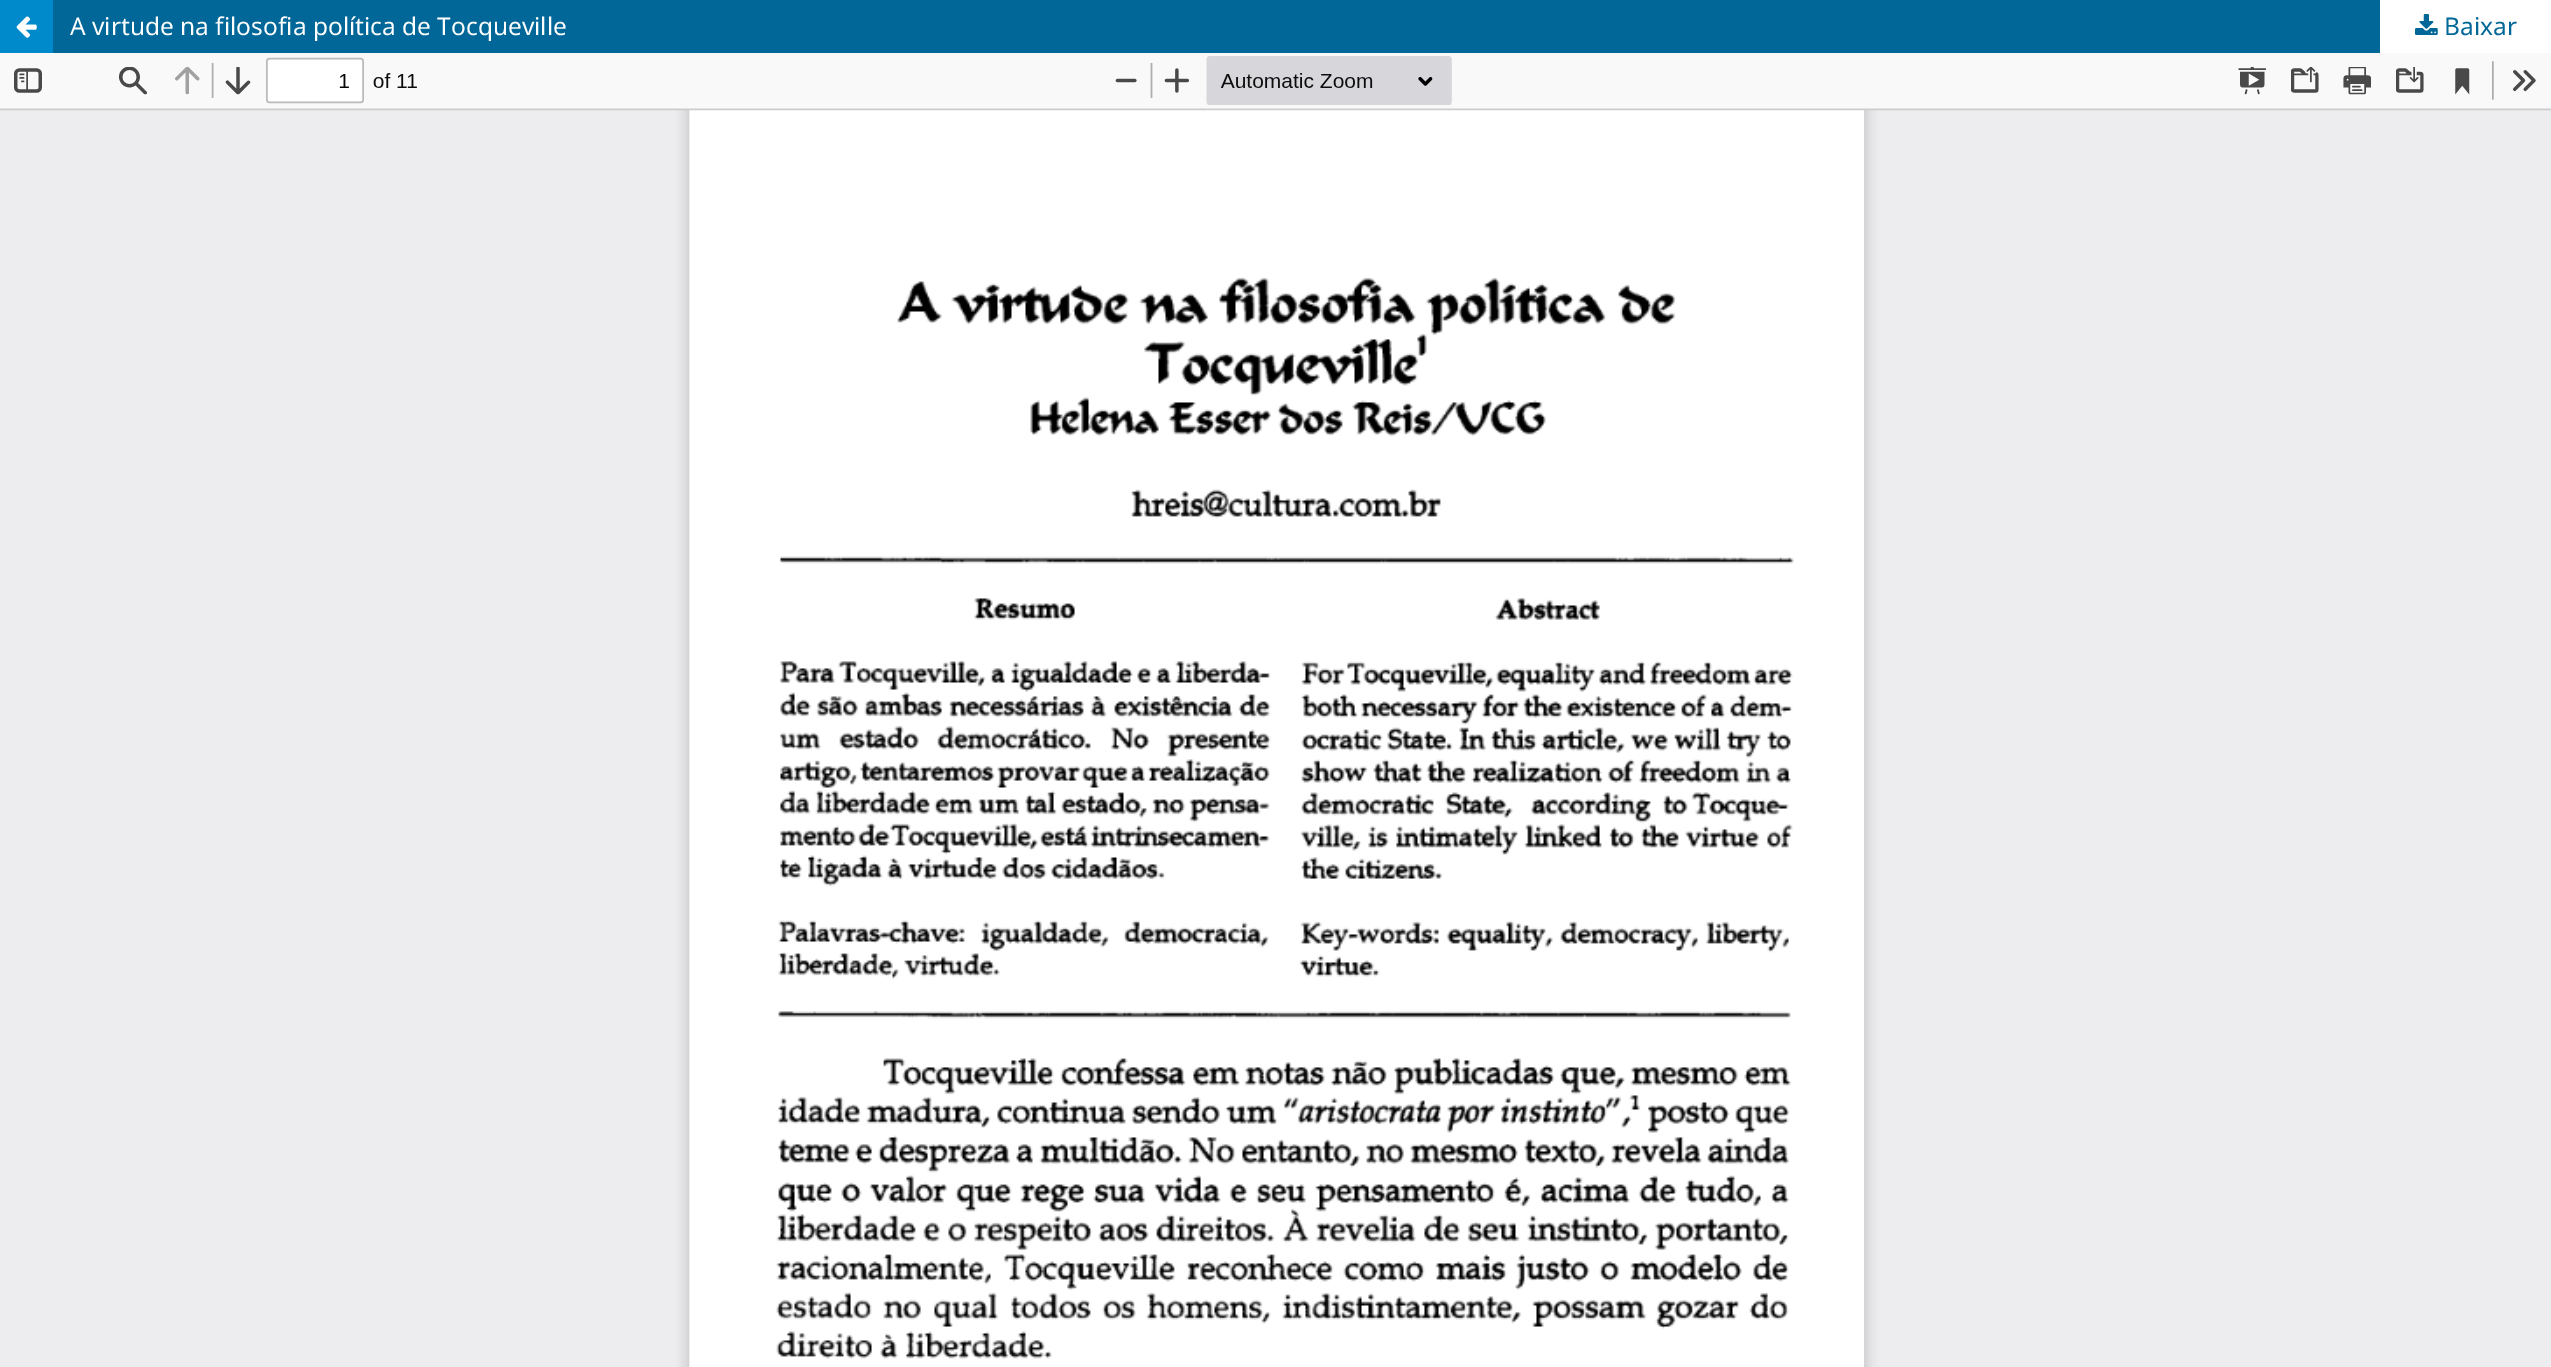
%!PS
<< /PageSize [2551 1367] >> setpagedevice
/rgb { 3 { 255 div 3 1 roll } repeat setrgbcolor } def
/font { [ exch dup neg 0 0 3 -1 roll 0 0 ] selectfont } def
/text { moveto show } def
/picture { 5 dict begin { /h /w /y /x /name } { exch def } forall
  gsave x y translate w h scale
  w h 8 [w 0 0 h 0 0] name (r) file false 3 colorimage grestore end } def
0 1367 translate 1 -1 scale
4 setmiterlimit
255 255 255 rgb
0 0 2551 1367 rectfill
0 103 152 rgb
53 0 2327 53 rectfill
0 138 203 rgb
0 0 53 53 rectfill
(img_01.rgb) 16 16 21 22 picture
(img_02.rgb) 2415 14 23 21 picture
(img_03.rgb) 0 53 2551 1314 picture
/NotoSans-Regular 24.5 font
255 255 255 rgb
(A virtude na filosofia política de Tocqueville) 70 35 text
0 103 152 rgb
(Baixar) 2444 35 text
showpage
